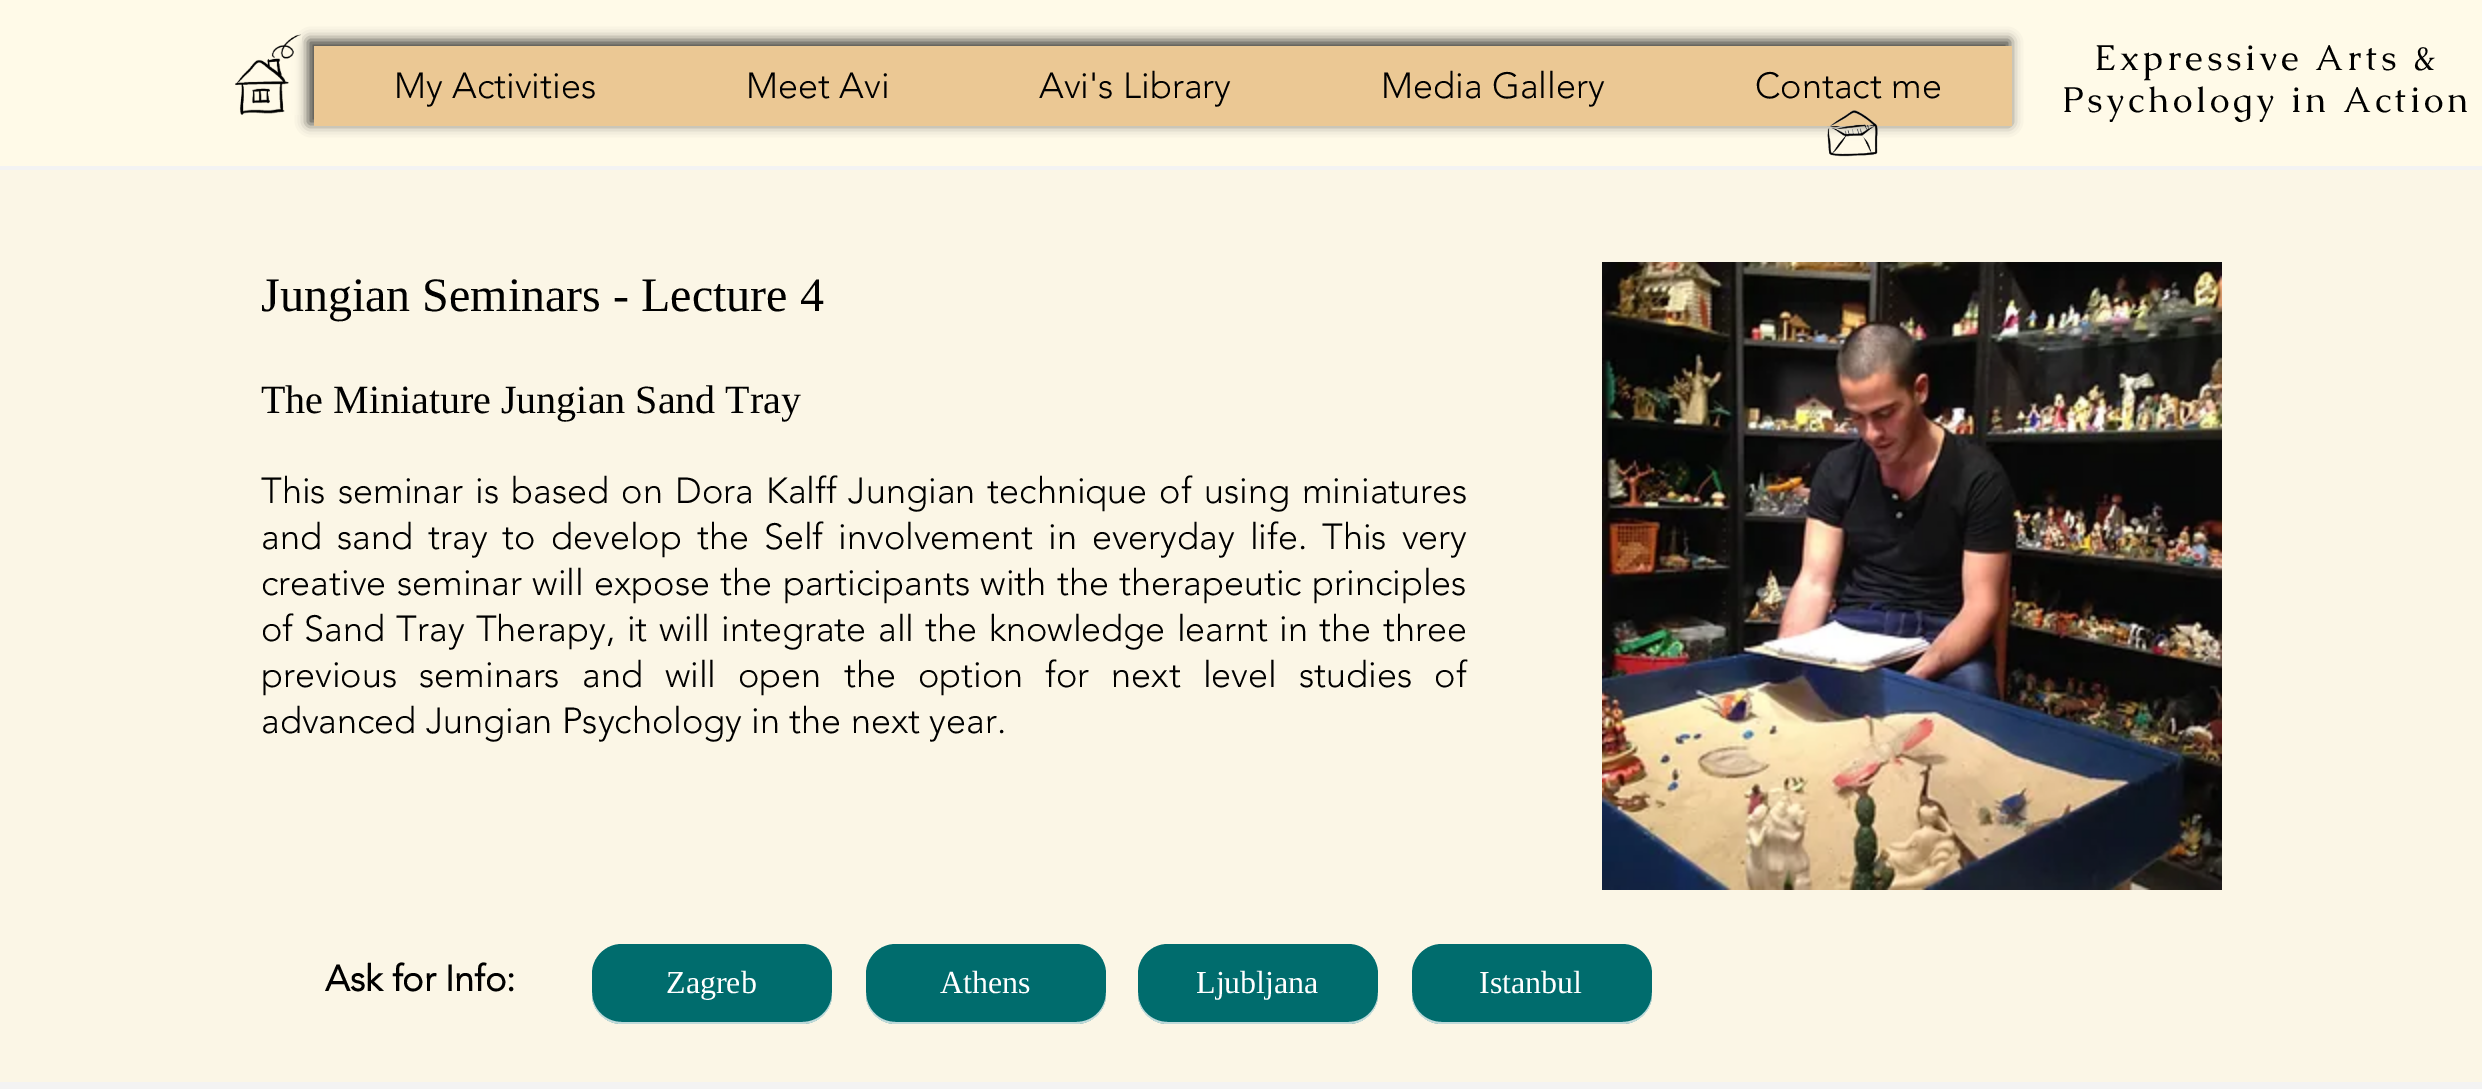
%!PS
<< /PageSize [2482 1089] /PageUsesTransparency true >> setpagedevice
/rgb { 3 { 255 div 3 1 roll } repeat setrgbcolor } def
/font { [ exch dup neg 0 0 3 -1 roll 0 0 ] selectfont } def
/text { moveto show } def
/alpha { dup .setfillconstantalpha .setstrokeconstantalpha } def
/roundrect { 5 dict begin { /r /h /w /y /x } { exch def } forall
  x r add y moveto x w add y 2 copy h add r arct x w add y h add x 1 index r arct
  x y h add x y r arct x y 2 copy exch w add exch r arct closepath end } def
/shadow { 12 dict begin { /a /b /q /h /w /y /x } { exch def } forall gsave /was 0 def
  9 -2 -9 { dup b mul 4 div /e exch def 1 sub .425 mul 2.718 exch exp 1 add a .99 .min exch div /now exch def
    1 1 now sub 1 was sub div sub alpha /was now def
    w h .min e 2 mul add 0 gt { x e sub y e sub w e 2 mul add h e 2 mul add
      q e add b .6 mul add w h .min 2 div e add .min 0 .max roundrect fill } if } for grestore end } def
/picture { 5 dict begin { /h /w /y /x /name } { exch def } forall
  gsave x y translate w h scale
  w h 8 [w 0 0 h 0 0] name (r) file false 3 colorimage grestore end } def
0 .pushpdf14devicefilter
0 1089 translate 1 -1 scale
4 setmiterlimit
243 243 243 rgb
0 0 2482 1089 rectfill
255 250 232 rgb
0 0 2482 166 rectfill
0 0 0 rgb
308 40 1702 84 0 6 0.7 shadow
(img_01.rgb) 235 34 67 81 picture
235 200 148 rgb
314 46 1698 80 rectfill
(img_02.rgb) 1827 110 51 47 picture
251 246 230 rgb
0 170 2482 912 rectfill
(img_03.rgb) 1602 262 620 628 picture
0 108 109 rgb
592 944 240 80 30 roundrect fill
0.75 alpha
255 255 255 rgb
592 992 moveto 0 2 rlineto 0 17 13 30 30 30 rcurveto 180 0 rlineto 17 0 30 -13 30 -30 rcurveto 0 -2 rlineto 0 17 -13 30 -30 30 rcurveto -180 0 rlineto -17 0 -30 -13 -30 -30 rcurveto closepath fill
1 alpha
0 108 109 rgb
866 944 240 80 30 roundrect fill
0.75 alpha
255 255 255 rgb
866 992 moveto 0 2 rlineto 0 17 13 30 30 30 rcurveto 180 0 rlineto 17 0 30 -13 30 -30 rcurveto 0 -2 rlineto 0 17 -13 30 -30 30 rcurveto -180 0 rlineto -17 0 -30 -13 -30 -30 rcurveto closepath fill
1 alpha
0 108 109 rgb
1138 944 240 80 30 roundrect fill
0.75 alpha
255 255 255 rgb
1138 992 moveto 0 2 rlineto 0 17 13 30 30 30 rcurveto 180 0 rlineto 17 0 30 -13 30 -30 rcurveto 0 -2 rlineto 0 17 -13 30 -30 30 rcurveto -180 0 rlineto -17 0 -30 -13 -30 -30 rcurveto closepath fill
1 alpha
0 108 109 rgb
1412 944 240 80 30 roundrect fill
0.75 alpha
255 255 255 rgb
1412 992 moveto 0 2 rlineto 0 17 13 30 30 30 rcurveto 180 0 rlineto 17 0 30 -13 30 -30 rcurveto 0 -2 rlineto 0 17 -13 30 -30 30 rcurveto -180 0 rlineto -17 0 -30 -13 -30 -30 rcurveto closepath fill
/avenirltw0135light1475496-Light 36 font
1 alpha
0 0 0 rgb
(My Activities) 394 98 text
(Meet Avi) 746 98 text
(Avi's Library) 1039 98 text
(Media Gallery) 1381 98 text
(Contact me) 1755 98 text
/Caudex-Regular 36 font
2094 70 moveto 3.6 0 (Expressive Arts &) ashow
2062 112 moveto 3.6 0 (Psychology in Action) ashow
/LiberationSerif-Regular 48 font
(Jungian Seminars - Lecture 4) 261 311 text
/LiberationSerif-Regular 40 font
(The Miniature Jungian Sand Tray) 261 413 text
/avenirltw0135light1475496-Light 36 font
261 503 moveto 2.75 0 32 (This seminar is based on Dora Kalff Jungian technique of using miniatures) widthshow
261 549 moveto 5.75 0 32 (and sand tray to develop the Self involvement in everyday life. This very) widthshow
261 595 moveto 1 0 32 (creative seminar will expose the participants with the therapeutic principles) widthshow
261 641 moveto 2 0 32 (of Sand Tray Therapy, it will integrate all the knowledge learnt in the three) widthshow
261 687 moveto 12.75 0 32 (previous seminars and will open the option for next level studies of) widthshow
(advanced Jungian Psychology in the next year.) 261 733 text
/avenirltw0135light1475496-Bold 36 font
(Ask for Info:) 325 991 text
/LiberationSerif-Regular 32 font
255 255 255 rgb
(Zagreb) 666 993 text
(Athens) 940 993 text
(Ljubljana) 1196 993 text
(Istanbul) 1479 993 text
.poppdf14devicefilter showpage
